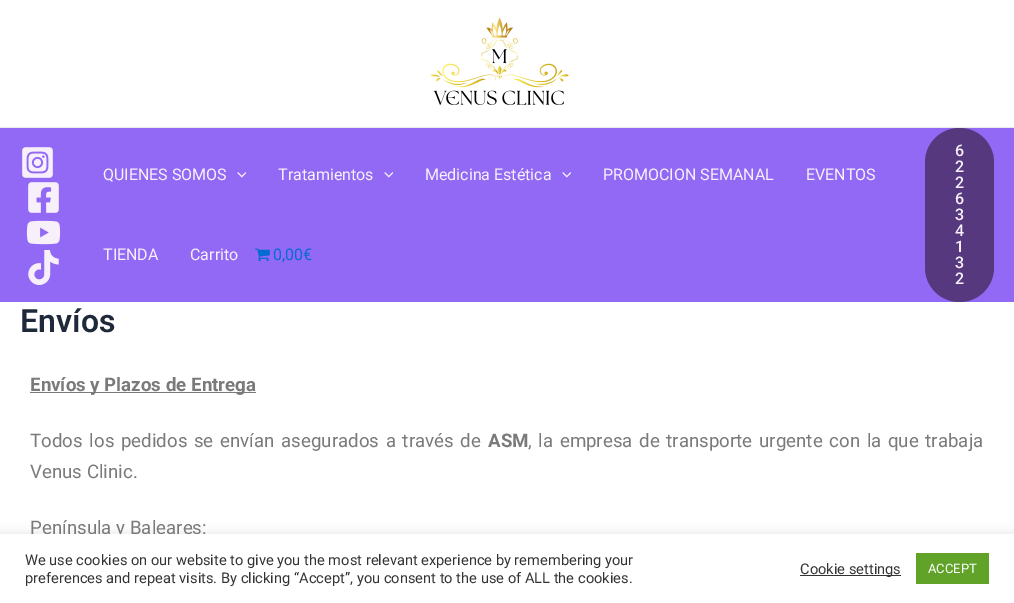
%!PS
<< /PageSize [1014 603] /PageUsesTransparency true >> setpagedevice
/rgb { 3 { 255 div 3 1 roll } repeat setrgbcolor } def
/font { [ exch dup neg 0 0 3 -1 roll 0 0 ] selectfont } def
/text { moveto show } def
/alpha { dup .setfillconstantalpha .setstrokeconstantalpha } def
/roundrect { 5 dict begin { /r /h /w /y /x } { exch def } forall
  x r add y moveto x w add y 2 copy h add r arct x w add y h add x 1 index r arct
  x y h add x y r arct x y 2 copy exch w add exch r arct closepath end } def
/shadow { 12 dict begin { /a /b /q /h /w /y /x } { exch def } forall gsave /was 0 def
  9 -2 -9 { dup b mul 4 div /e exch def 1 sub .425 mul 2.718 exch exp 1 add a .99 .min exch div /now exch def
    1 1 now sub 1 was sub div sub alpha /was now def
    w h .min e 2 mul add 0 gt { x e sub y e sub w e 2 mul add h e 2 mul add
      q e add b .6 mul add w h .min 2 div e add .min 0 .max roundrect fill } if } for grestore end } def
/picture { 5 dict begin { /h /w /y /x /name } { exch def } forall
  gsave x y translate w h scale
  w h 8 [w 0 0 h 0 0] name (r) file false 3 colorimage grestore end } def
0 .pushpdf14devicefilter
0 603 translate 1 -1 scale
4 setmiterlimit
255 255 255 rgb
0 0 1014 603 rectfill
234 234 234 rgb
0 127 1014 1 rectfill
(img_01.rgb) 430 17 139 88 picture
146 105 245 rgb
0 128 1014 174 rectfill
(img_02.rgb) 22 147 31 31 picture
(img_03.rgb) 28 182 31 31 picture
(img_04.rgb) 26 220 35 25 picture
(img_05.rgb) 28 250 31 35 picture
(img_06.rgb) 237 172 9 6 picture
(img_06.rgb) 384 172 9 6 picture
(img_06.rgb) 562 172 9 6 picture
(img_07.rgb) 255 248 15 14 picture
85 56 125 rgb
925 128 69 174 34.5 roundrect fill
122 122 122 rgb
30 392 226 1 rectfill
172 171 171 rgb
0 533 1014 69 0 5 0.3 shadow
/Roboto-Regular 16 font
247 240 250 rgb
(QUIENES SOMOS) 103 180 text
(Tratamientos) 278 180 text
(Medicina Estética) 425 180 text
(PROMOCION SEMANAL) 603 180 text
(EVENTOS) 806 180 text
(TIENDA) 103 260 text
(Carrito) 190 260 text
4 107 210 rgb
(0,00€) 273 260 text
/Roboto-Medium 16 font
247 240 250 rgb
(6) 955 156 text
(2) 955 172 text
(2) 955 188 text
(6) 955 204 text
(3) 955 220 text
(4) 955 236 text
(1) 955 252 text
(3) 955 268 text
(2) 955 284 text
/Roboto-SemiBold 32 font
30 41 59 rgb
(Envíos) 20 332 text
/Roboto-Bold 18.7 font
122 122 122 rgb
(Envíos y Plazos de Entrega) 30 391 text
/Roboto-Regular 18.7 font
30 447 moveto 2 0 32 (Todos los pedidos se envían asegurados a través de) widthshow
/Roboto-Bold 18.7 font
(ASM) 488 447 text
/Roboto-Regular 18.7 font
528 447 moveto 2 0 32 (, la empresa de transporte urgente con la que trabaja) widthshow
(Venus Clinic.) 30 478 text
(Península y Baleares:) 30 534 text
255 255 255 rgb
0 534 1014 69 rectfill
/Roboto-Regular 14.65 font
51 51 51 rgb
(We use cookies on our website to give you the most relevant experience by remembering your) 25 565 text
(preferences and repeat visits. By clicking “Accept”, you consent to the use of ALL the cookies.) 25 583 text
800 575 101 1 rectfill
(Cookie settings) 800 574 text
97 162 41 rgb
916 553 73 31 rectfill
/Roboto-Regular 13 font
255 255 255 rgb
(ACCEPT) 928 573 text
.poppdf14devicefilter showpage
